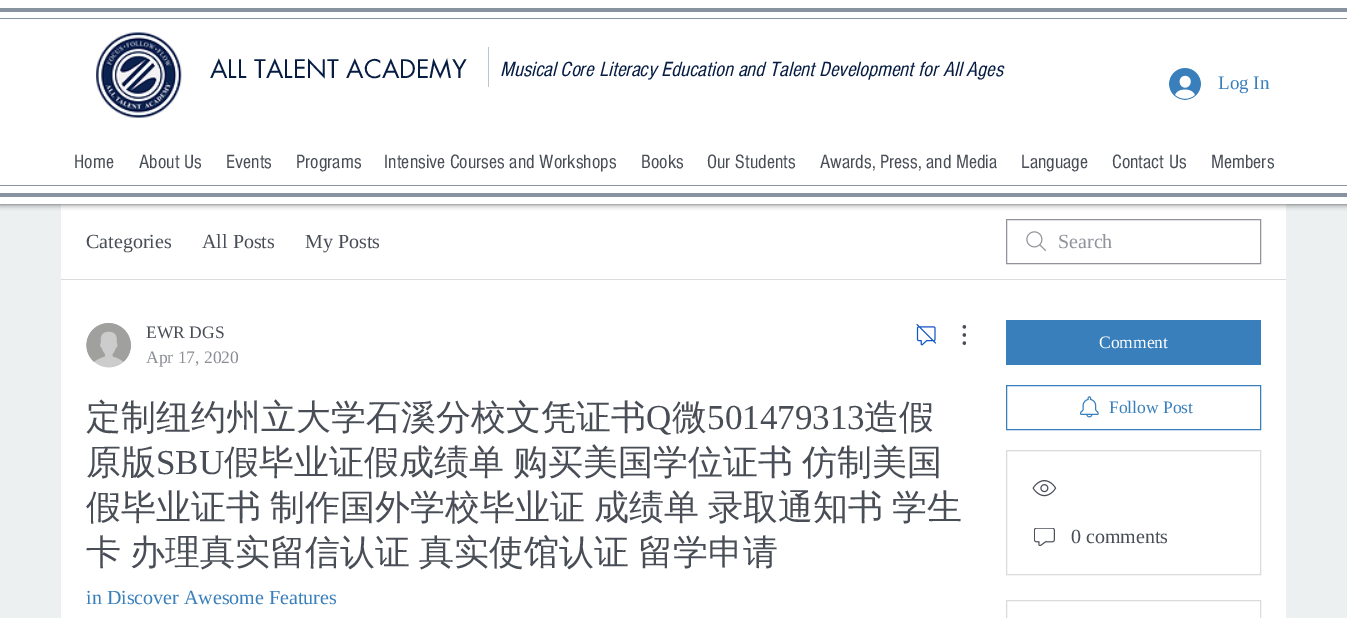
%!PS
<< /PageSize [1347 618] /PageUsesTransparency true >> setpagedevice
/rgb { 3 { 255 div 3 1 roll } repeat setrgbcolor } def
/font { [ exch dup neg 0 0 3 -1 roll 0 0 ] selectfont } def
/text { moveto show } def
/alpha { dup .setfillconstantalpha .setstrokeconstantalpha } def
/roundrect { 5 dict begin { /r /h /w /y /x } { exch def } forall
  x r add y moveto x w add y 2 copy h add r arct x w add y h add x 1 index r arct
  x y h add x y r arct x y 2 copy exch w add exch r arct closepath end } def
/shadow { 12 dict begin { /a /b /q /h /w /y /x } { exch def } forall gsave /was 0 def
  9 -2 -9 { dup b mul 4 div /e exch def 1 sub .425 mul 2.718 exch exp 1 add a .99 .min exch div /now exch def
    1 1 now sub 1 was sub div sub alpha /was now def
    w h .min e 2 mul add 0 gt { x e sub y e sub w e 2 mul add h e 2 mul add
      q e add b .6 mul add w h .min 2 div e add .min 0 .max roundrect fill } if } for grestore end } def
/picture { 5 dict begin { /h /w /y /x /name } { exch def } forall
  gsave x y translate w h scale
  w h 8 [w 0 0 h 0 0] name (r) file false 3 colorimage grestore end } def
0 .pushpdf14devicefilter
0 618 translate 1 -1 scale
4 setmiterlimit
236 240 241 rgb
0 0 1347 618 rectfill
255 255 255 rgb
61 204 1225 414 rectfill
0 0 0 rgb
0 0 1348 204 0 3 0.7 shadow
255 255 255 rgb
0 0 1347 204 rectfill
136 146 161 rgb
0 8 1347 4 rectfill
0 193 1347 4 rectfill
0 18 1347 1 rectfill
0 185 1347 1 rectfill
(img_01.rgb) 96 32 86 86 picture
186 197 205 rgb
488 47 1 40 rectfill
(img_02.rgb) 1169 68 32 32 picture
218 219 221 rgb
61 279 1225 1 rectfill
(img_03.rgb) 1026 231 21 21 picture
145 148 154 rgb
1006.5 219.5 254 44 rectstroke
(img_04.rgb) 86 323 45 45 picture
(img_05.rgb) 916 324 20 22 picture
(img_06.rgb) 962 325 4 20 picture
56 127 187 rgb
1006 320 255 45 rectfill
1006.5 385.5 254 44 rectstroke
(img_07.rgb) 1080 396 19 22 picture
218 219 221 rgb
1006.5 450.5 254 124 rectstroke
(img_08.rgb) 1032 480 25 17 picture
(img_09.rgb) 1034 528 21 18 picture
1006.5 600.5 254 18 rectstroke
/futura-Regular 25 font
6 28 66 rgb
(ALL TALENT ACADEMY) 210 78 text
/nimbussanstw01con-Italic 21.25 font
(Musical Core Literacy Education and Talent Development for All Ages) 500 76 text
/LiberationSerif-Regular 19 font
56 127 187 rgb
(Log In) 1218 89 text
/nimbussanstw01con-Regular 20 font
72 77 86 rgb
(Home) 74 168 text
(About Us) 139 168 text
(Events) 226 168 text
(Programs) 296 168 text
(Intensive Courses and Workshops) 384 168 text
(Books) 641 168 text
(Our Students) 707 168 text
(Awards, Press, and Media) 820 168 text
(Language) 1021 168 text
(Contact Us) 1112 168 text
(Members) 1211 168 text
/LiberationSerif-Regular 20 font
(Categories) 86 248 text
(All Posts) 202 248 text
(My Posts) 305 248 text
145 148 154 rgb
(Search) 1058 248 text
/LiberationSerif-Regular 17.5 font
72 77 86 rgb
(EWR DGS) 146 338 text
138 141 147 rgb
(Apr 17, 2020) 146 363 text
/WenQuanYiZenHei-Medium 35 font
72 77 86 rgb
(定制纽约州立大学石溪分校文凭证书) 86 429 text
/LiberationSerif-Regular 35 font
(Q) 646 429 text
/WenQuanYiZenHei-Medium 35 font
(微) 672 429 text
/LiberationSerif-Regular 35 font
(501479313) 707 429 text
/WenQuanYiZenHei-Medium 35 font
(造假) 864 429 text
(原版) 86 474 text
/LiberationSerif-Regular 35 font
(SBU) 156 474 text
/WenQuanYiZenHei-Medium 35 font
224 474 moveto -1.5 0 32 (假毕业证假成绩单 购买美国学位证书 仿制美国) widthshow
86 519 moveto -1.5 0 32 (假毕业证书 制作国外学校毕业证 成绩单 录取通知书 学生) widthshow
86 564 moveto -1.5 0 32 (卡 办理真实留信认证 真实使馆认证 留学申请) widthshow
/LiberationSerif-Regular 20 font
56 127 187 rgb
(in Discover Awesome Features) 86 604 text
/LiberationSerif-Regular 17.5 font
255 255 255 rgb
(Comment) 1099 348 text
56 127 187 rgb
(Follow Post) 1109 413 text
/LiberationSerif-Regular 20 font
72 77 86 rgb
(0 comments) 1071 543 text
.poppdf14devicefilter showpage
